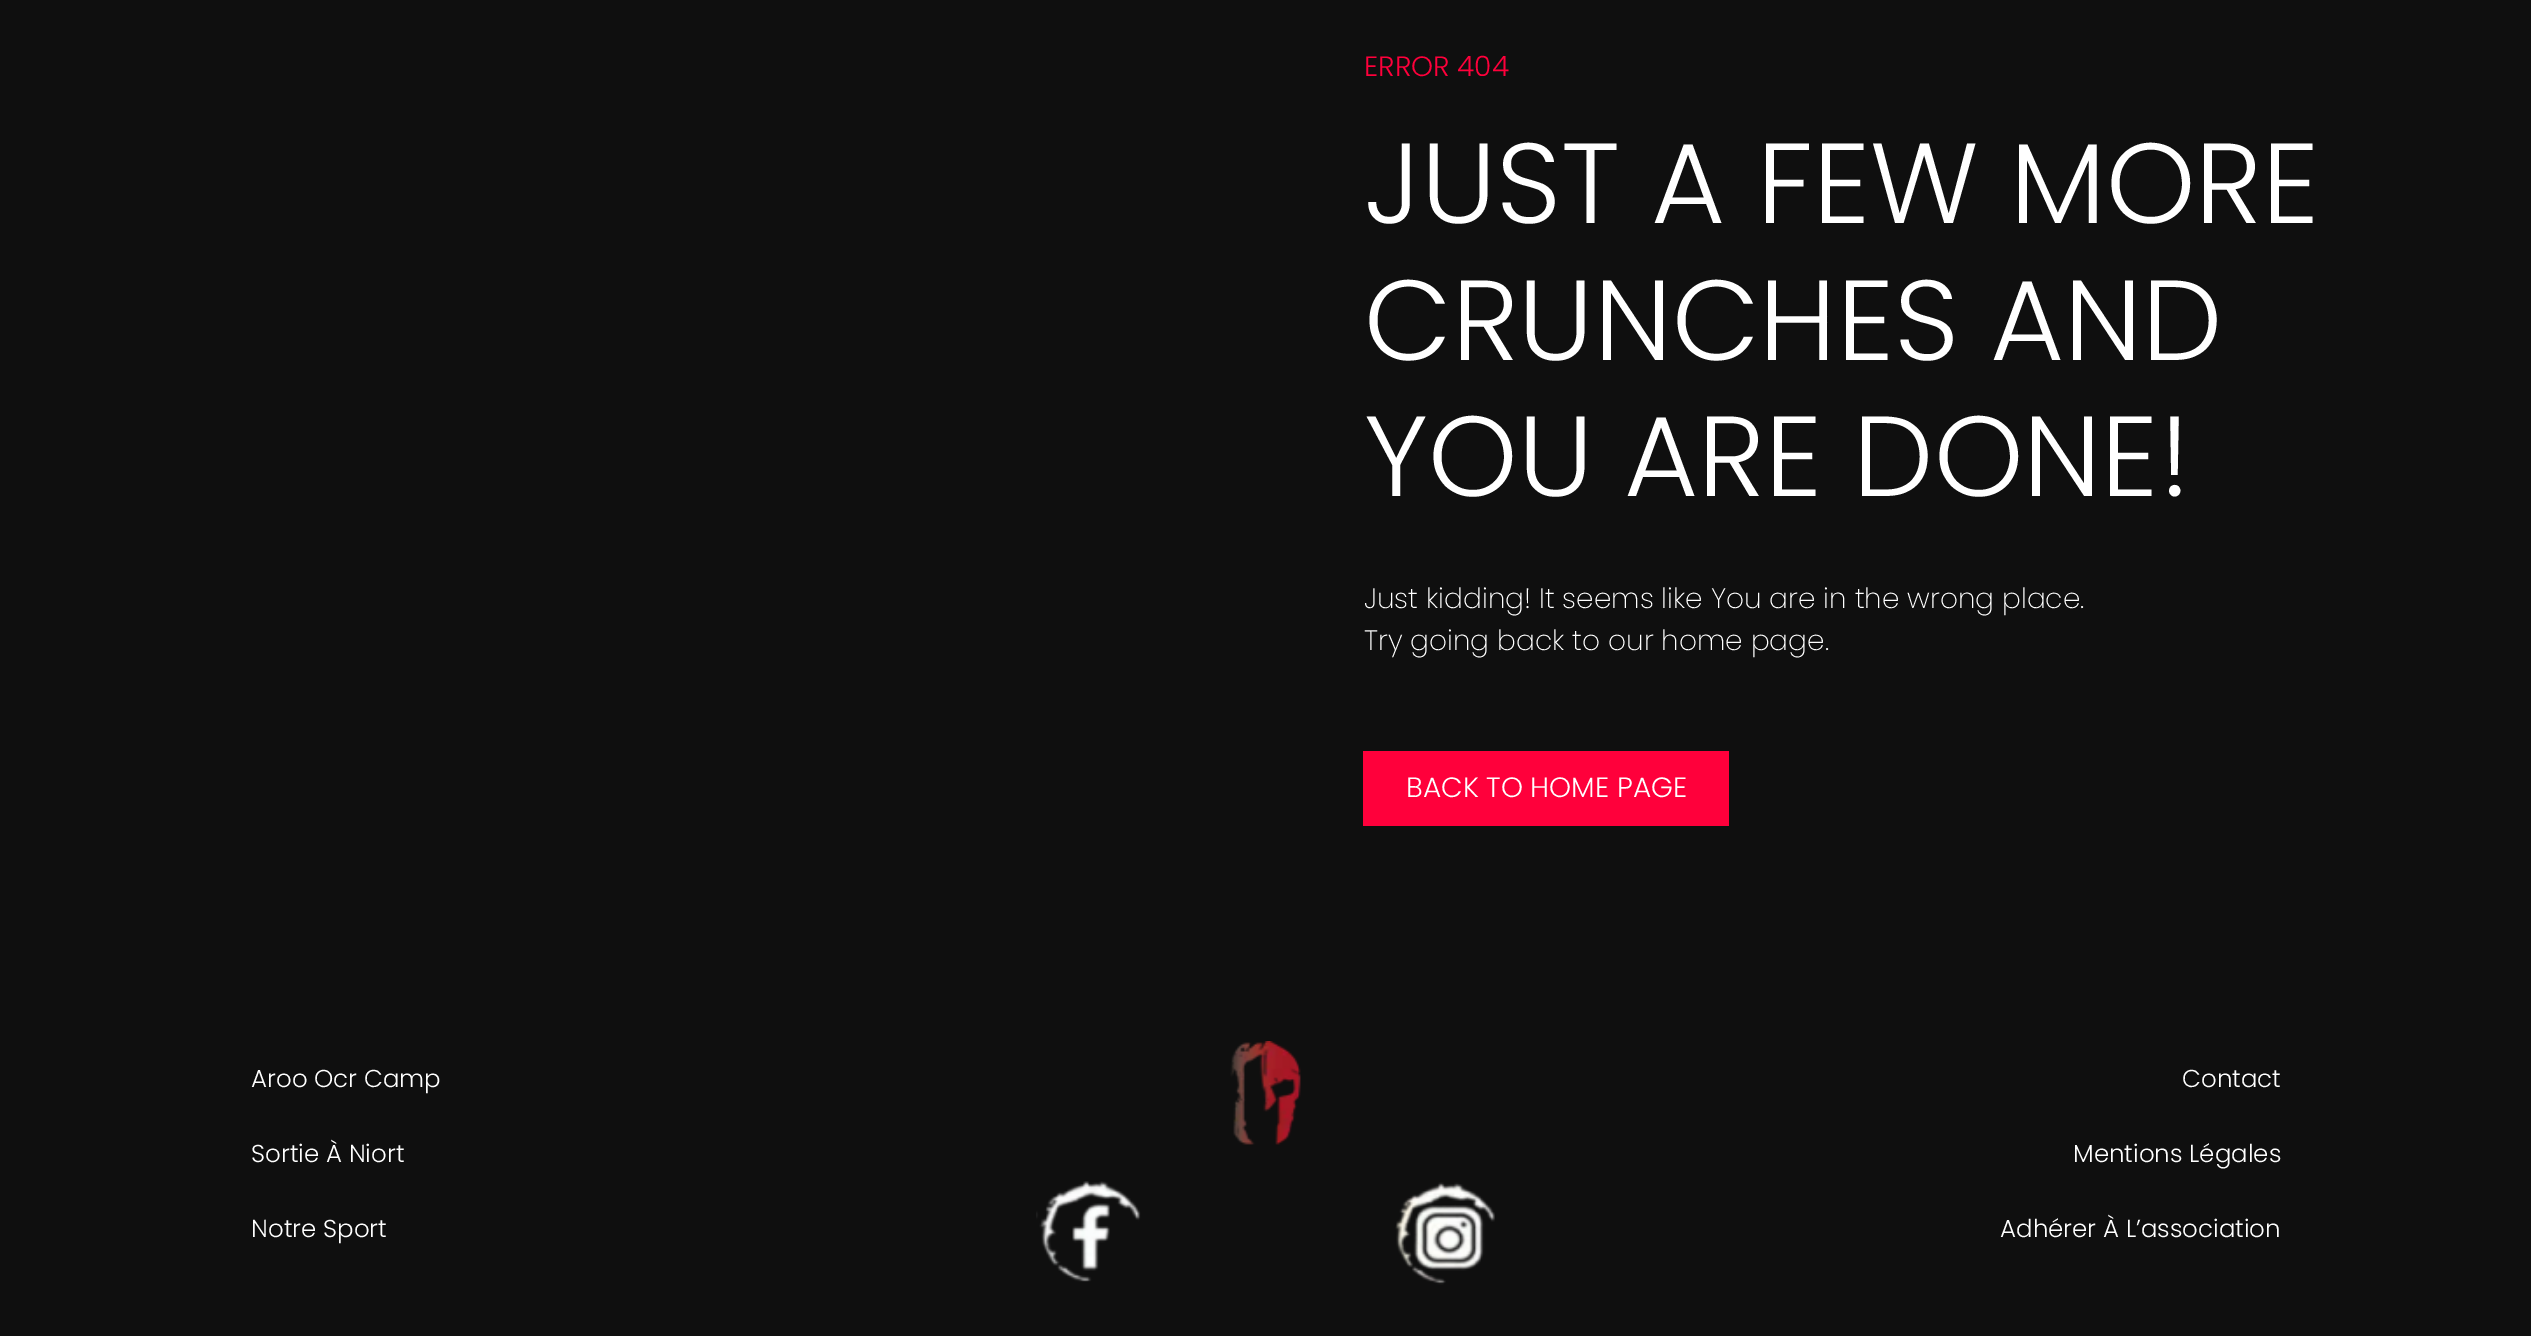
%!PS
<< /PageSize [2531 1336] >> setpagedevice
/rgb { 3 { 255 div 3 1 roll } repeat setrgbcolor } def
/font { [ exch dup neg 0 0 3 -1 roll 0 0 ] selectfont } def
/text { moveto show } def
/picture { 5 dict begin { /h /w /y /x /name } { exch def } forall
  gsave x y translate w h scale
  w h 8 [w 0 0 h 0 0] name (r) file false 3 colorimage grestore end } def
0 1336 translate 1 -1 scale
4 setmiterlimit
15 15 15 rgb
0 0 2531 1336 rectfill
255 0 59 rgb
1363 751 366 75 rectfill
(img_01.rgb) 1230 1041 71 104 picture
(img_02.rgb) 1036 1181 105 101 picture
(img_03.rgb) 1395 1182 100 103 picture
/Poppins-Light 28 font
(ERROR 404) 1364 76 text
/Poppins-Light 113.75 font
255 255 255 rgb
(JUST A FEW MORE) 1364 223 text
(CRUNCHES AND) 1364 360 text
(YOU ARE DONE!) 1364 496 text
/Poppins-ExtraLight 28 font
(Just kidding! It seems like You are in the wrong place.) 1364 608 text
(Try going back to our home page.) 1364 650 text
/Poppins-Light 28 font
(BACK TO HOME PAGE) 1406 797 text
/Poppins-Light 24.5 font
(Aroo Ocr Camp) 251 1087 text
(Sortie À Niort) 251 1162 text
(Notre Sport) 251 1237 text
(Contact) 2182 1087 text
(Mentions Légales) 2073 1162 text
(Adhérer À L’association) 2000 1237 text
showpage
